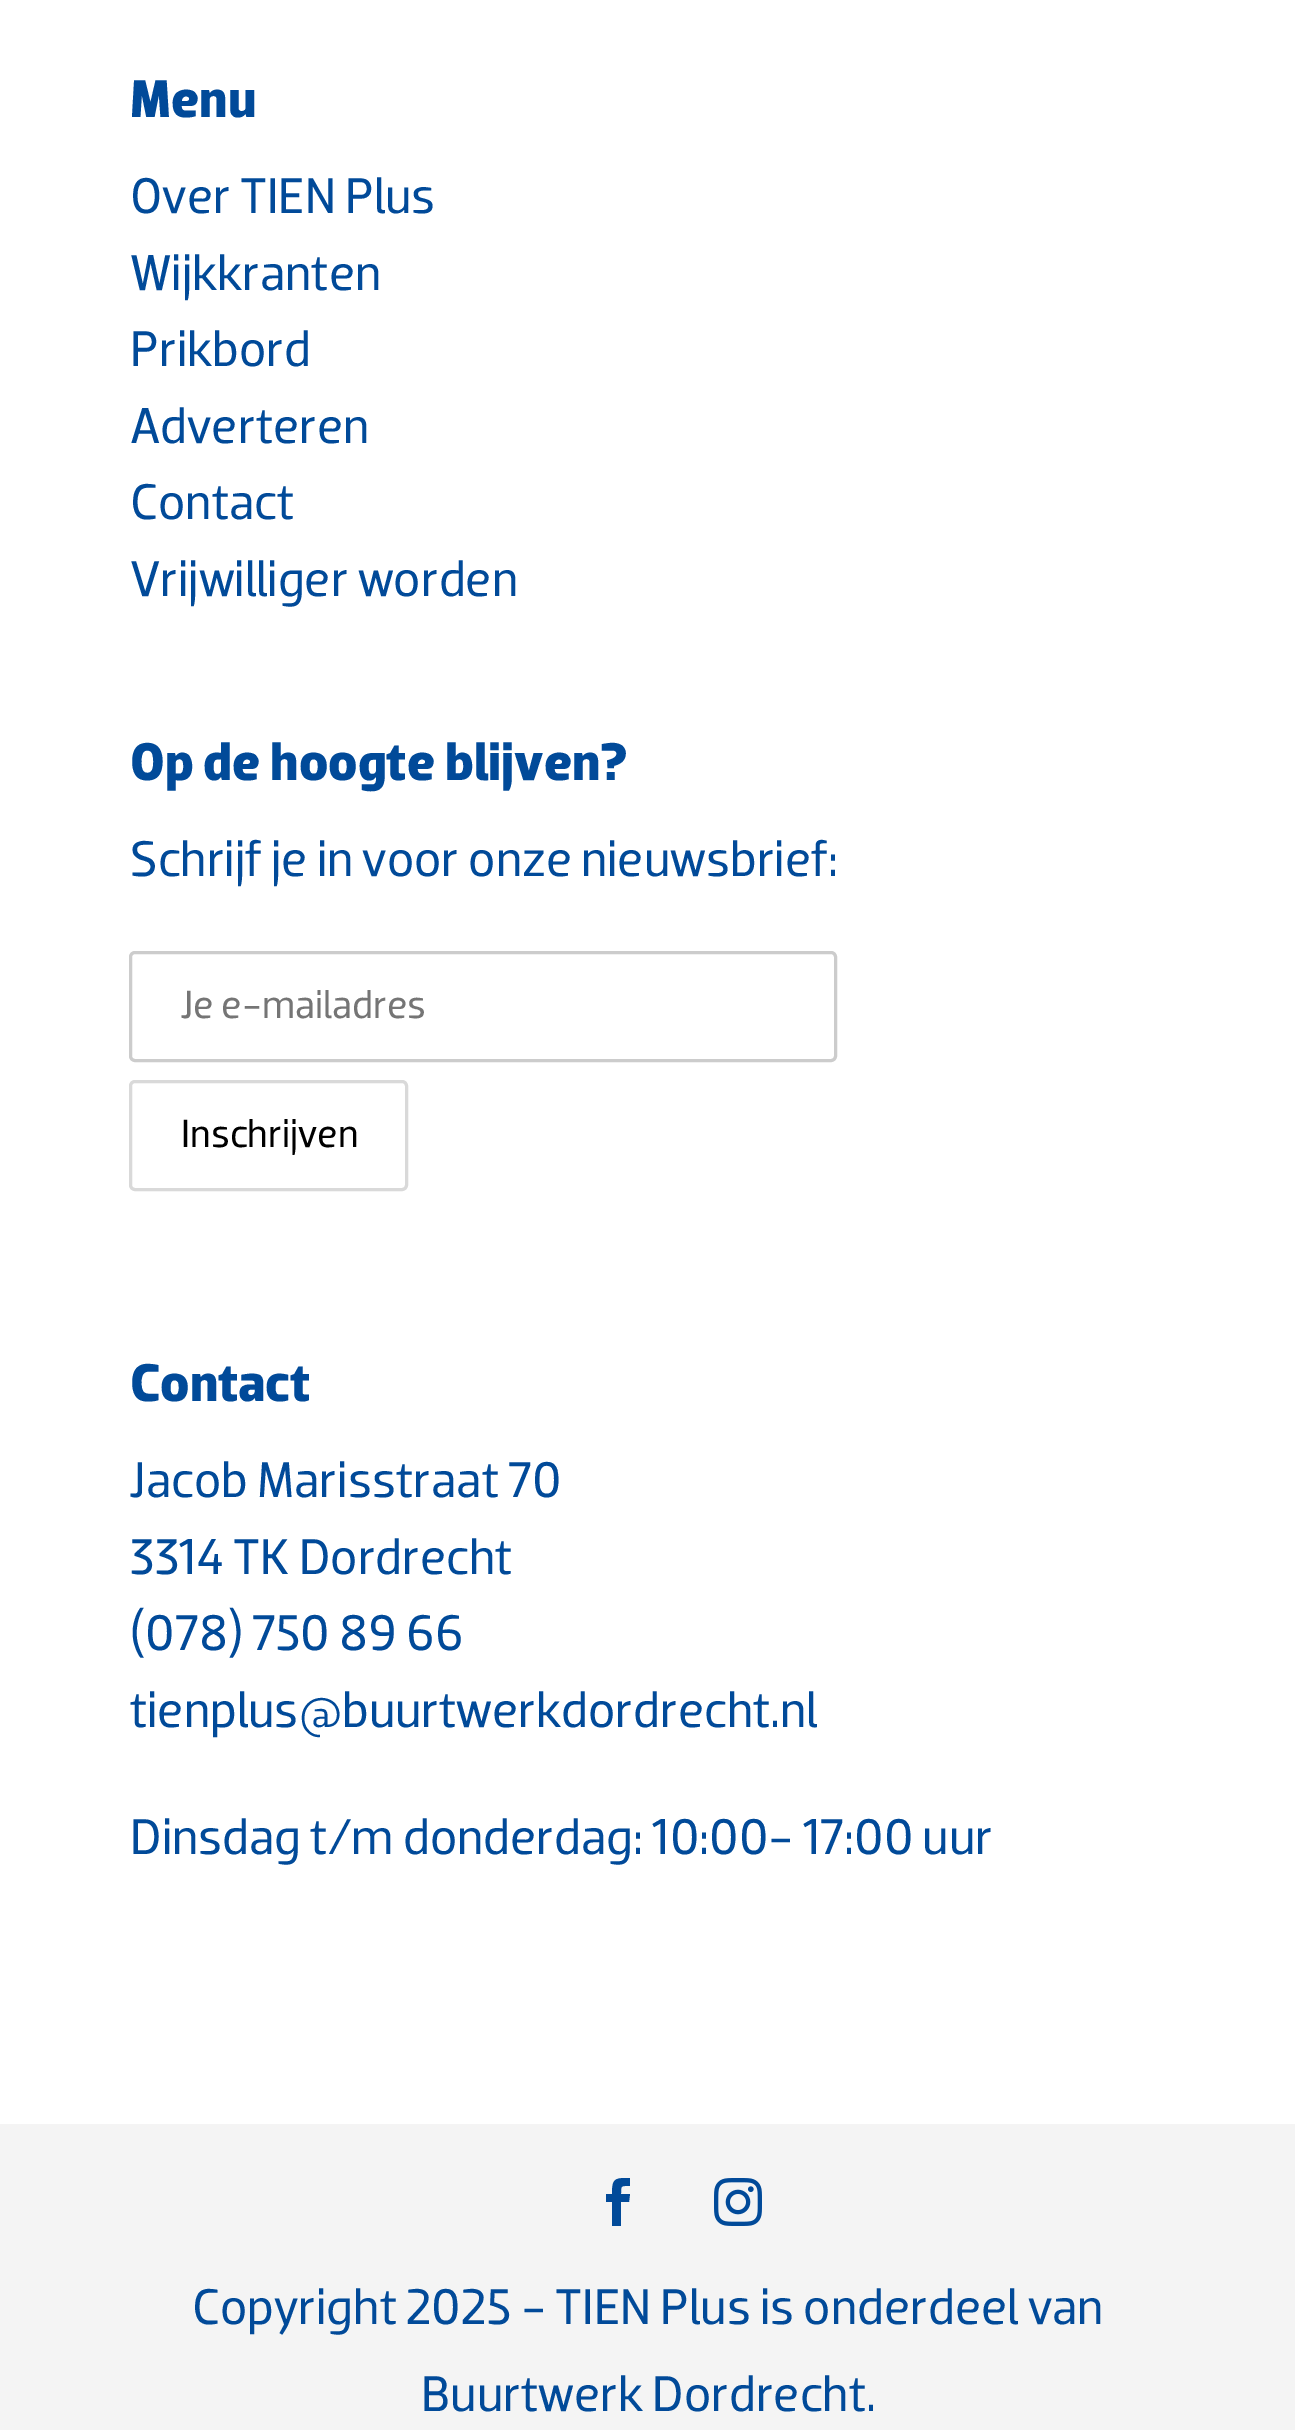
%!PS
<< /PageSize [1295 2430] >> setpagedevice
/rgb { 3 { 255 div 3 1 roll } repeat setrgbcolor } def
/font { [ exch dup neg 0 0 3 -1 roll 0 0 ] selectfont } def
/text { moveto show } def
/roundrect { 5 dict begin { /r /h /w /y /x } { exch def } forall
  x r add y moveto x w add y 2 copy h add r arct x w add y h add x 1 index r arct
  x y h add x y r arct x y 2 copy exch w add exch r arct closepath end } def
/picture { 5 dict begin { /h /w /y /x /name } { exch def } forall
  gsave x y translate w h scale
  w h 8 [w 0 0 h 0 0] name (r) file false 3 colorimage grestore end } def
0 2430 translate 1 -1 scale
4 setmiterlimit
255 255 255 rgb
0 0 1295 2430 rectfill
204 204 204 rgb
3 setlinewidth
130.5 952.5 705 108 4.5 roundrect stroke
217 217 217 rgb
130.5 1081.5 276 108 4.5 roundrect stroke
244 244 244 rgb
0 2124 1295 306 rectfill
1 74 153 rgb
612 2226 moveto 9 0 rlineto 0 -24 rlineto 8 0 rlineto 1 -8 rlineto -9 0 rlineto 0 -9 0 -8 9 -8 rcurveto 0 -8 rlineto -15 0 -18 0 -18 16 rcurveto -6 0 rlineto 0 8 rlineto 6 0 rlineto closepath fill
(img_01.rgb) 714 2178 48 48 picture
/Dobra-Bold 54 font
(Menu) 130 117 text
/Dobra-Regular 51 font
(Over TIEN Plus) 130 213 text
(Wijkkranten) 130 290 text
(Prikbord) 130 366 text
(Adverteren) 130 443 text
(Contact) 130 519 text
(Vrijwilliger worden) 130 596 text
/Dobra-Bold 54 font
(Op de hoogte blijven?) 130 780 text
/Dobra-Regular 51 font
(Schrijf je in voor onze nieuwsbrief:) 130 876 text
/Dobra-Regular 40 font
117 117 117 rgb
(Je e-mailadres) 181 1018 text
0 0 0 rgb
(Inschrijven) 181 1147 text
/Dobra-Bold 54 font
1 74 153 rgb
(Contact) 130 1401 text
/Dobra-Regular 51 font
(Jacob Marisstraat 70) 130 1497 text
(3314 TK Dordrecht) 130 1574 text
(\(078\) 750 89 66) 130 1650 text
(tienplus@buurtwerkdordrecht.nl) 130 1727 text
(Dinsdag t/m donderdag: 10:00- 17:00 uur) 130 1854 text
(Copyright 2025 - TIEN Plus is onderdeel van) 192 2324 text
(Buurtwerk Dordrecht.) 421 2411 text
showpage
